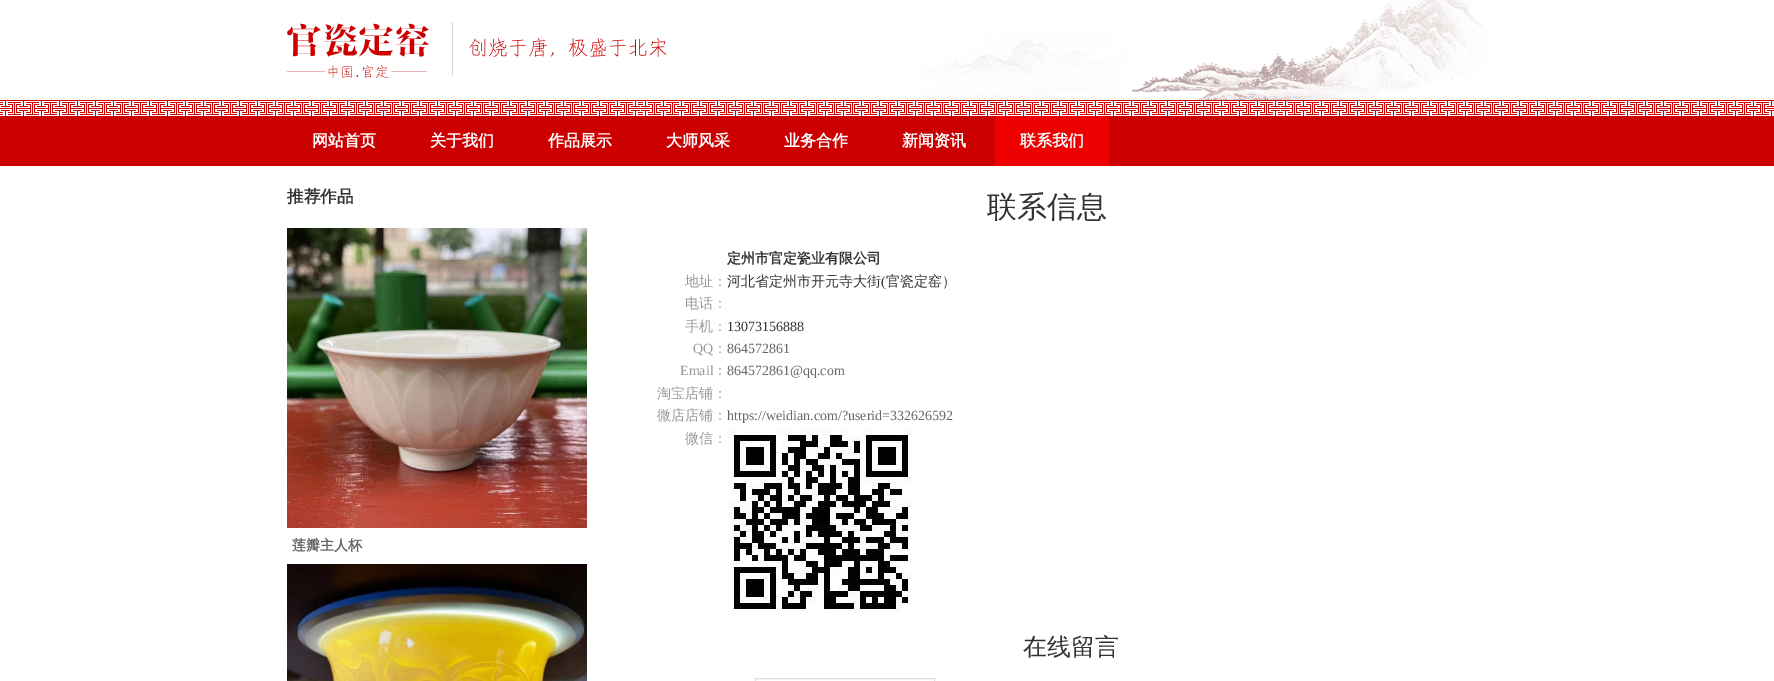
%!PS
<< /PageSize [1774 681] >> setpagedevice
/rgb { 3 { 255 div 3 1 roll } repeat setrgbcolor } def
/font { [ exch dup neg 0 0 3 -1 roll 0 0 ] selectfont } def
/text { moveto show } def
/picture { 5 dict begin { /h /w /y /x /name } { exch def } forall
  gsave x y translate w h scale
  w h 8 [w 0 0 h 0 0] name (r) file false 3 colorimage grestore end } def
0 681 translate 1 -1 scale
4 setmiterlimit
255 255 255 rgb
0 0 1774 681 rectfill
(img_01.rgb) 287 22 380 56 picture
(img_02.rgb) 921 0 565 100 picture
(img_03.rgb) 0 100 1774 16 picture
204 0 0 rgb
0 116 1774 50 rectfill
238 0 0 rgb
995 116 114 50 rectfill
(img_04.rgb) 287 228 300 300 picture
(img_05.rgb) 287 564 300 117 picture
(img_06.rgb) 727 428 184 184 picture
221 221 221 rgb
755.5 678.5 179 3 rectstroke
/WenQuanYiZenHei-Bold 16 font
255 255 255 rgb
(网站首页) 312 146 text
(关于我们) 430 146 text
(作品展示) 548 146 text
(大师风采) 666 146 text
(业务合作) 784 146 text
(新闻资讯) 902 146 text
(联系我们) 1020 146 text
/WenQuanYiZenHei-Bold 16.5 font
51 51 51 rgb
(推荐作品) 287 202 text
/WenQuanYiZenHei-Bold 14 font
102 102 102 rgb
(莲瓣主人杯) 292 550 text
/WenQuanYiZenHei-Medium 30 font
51 51 51 rgb
(联系信息) 987 217 text
/WenQuanYiZenHei-Bold 14 font
(定州市官定瓷业有限公司) 727 263 text
/WenQuanYiZenHei-Medium 14 font
153 153 153 rgb
(地址：) 685 286 text
51 51 51 rgb
(河北省定州市开元寺大街) 727 286 text
/LiberationSerif-Regular 14 font
(\() 881 286 text
/WenQuanYiZenHei-Medium 14 font
(官瓷定窑）) 886 286 text
153 153 153 rgb
(电话：) 685 308 text
(手机：) 685 331 text
/LiberationSerif-Regular 14 font
51 51 51 rgb
(13073156888) 727 331 text
153 153 153 rgb
(QQ) 693 353 text
/WenQuanYiZenHei-Medium 14 font
(：) 713 353 text
/LiberationSerif-Regular 14 font
102 102 102 rgb
(864572861) 727 353 text
153 153 153 rgb
(Email) 680 375 text
/WenQuanYiZenHei-Medium 14 font
(：) 713 375 text
/LiberationSerif-Regular 14 font
102 102 102 rgb
(864572861@qq.com) 727 375 text
/WenQuanYiZenHei-Medium 14 font
153 153 153 rgb
(淘宝店铺：) 657 398 text
(微店店铺：) 657 420 text
/LiberationSerif-Regular 14 font
102 102 102 rgb
(https://weidian.com/?userid=332626592) 727 420 text
/WenQuanYiZenHei-Medium 14 font
153 153 153 rgb
(微信：) 685 443 text
/WenQuanYiZenHei-Medium 24 font
51 51 51 rgb
(在线留言) 1023 655 text
showpage
